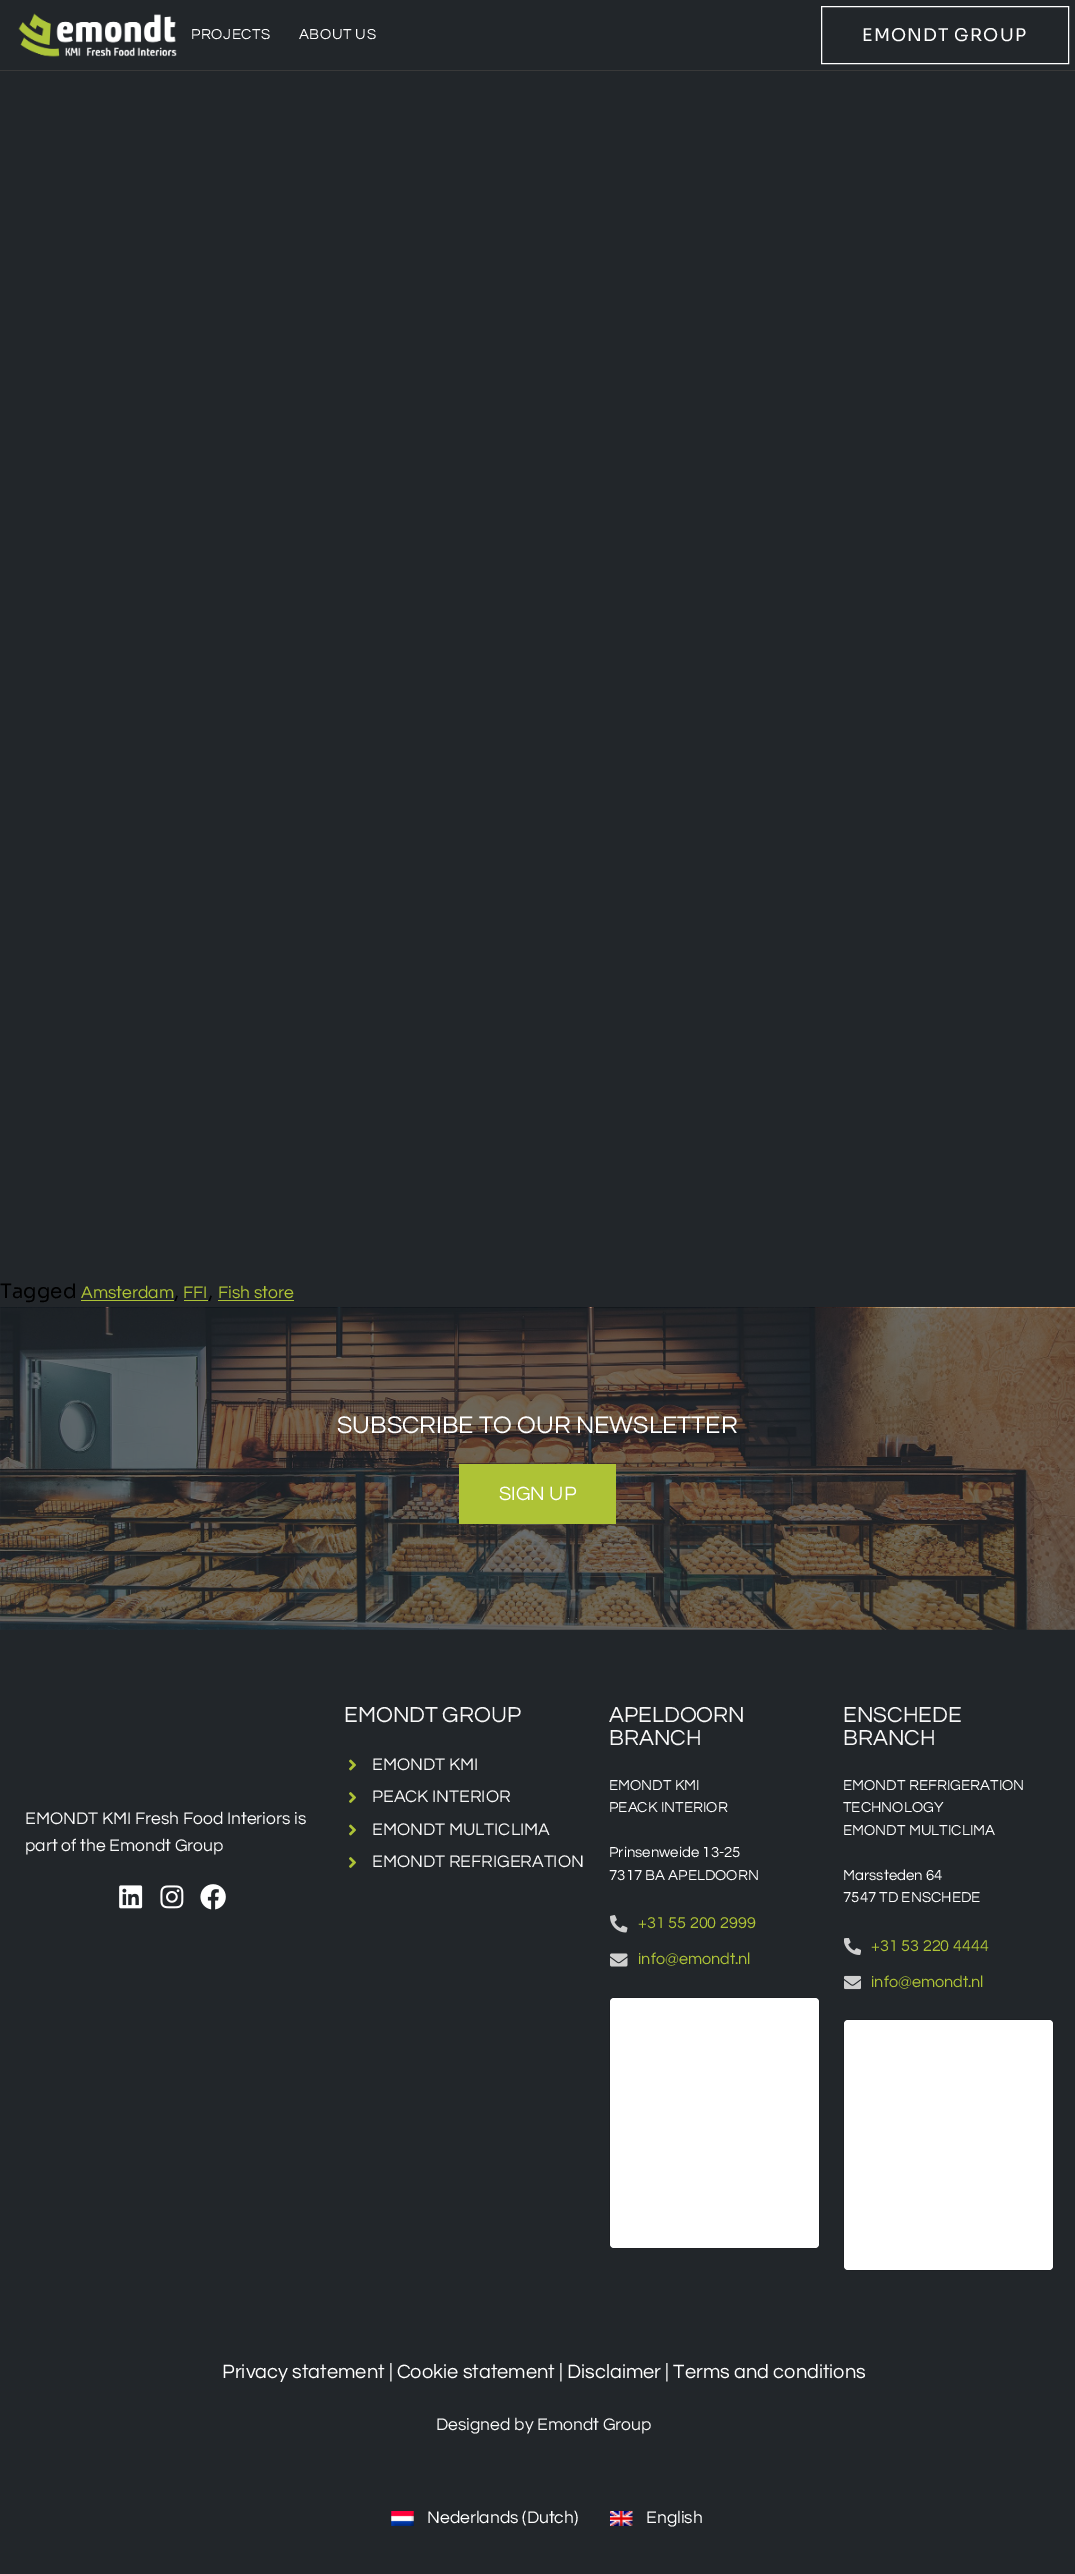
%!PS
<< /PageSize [1075 2574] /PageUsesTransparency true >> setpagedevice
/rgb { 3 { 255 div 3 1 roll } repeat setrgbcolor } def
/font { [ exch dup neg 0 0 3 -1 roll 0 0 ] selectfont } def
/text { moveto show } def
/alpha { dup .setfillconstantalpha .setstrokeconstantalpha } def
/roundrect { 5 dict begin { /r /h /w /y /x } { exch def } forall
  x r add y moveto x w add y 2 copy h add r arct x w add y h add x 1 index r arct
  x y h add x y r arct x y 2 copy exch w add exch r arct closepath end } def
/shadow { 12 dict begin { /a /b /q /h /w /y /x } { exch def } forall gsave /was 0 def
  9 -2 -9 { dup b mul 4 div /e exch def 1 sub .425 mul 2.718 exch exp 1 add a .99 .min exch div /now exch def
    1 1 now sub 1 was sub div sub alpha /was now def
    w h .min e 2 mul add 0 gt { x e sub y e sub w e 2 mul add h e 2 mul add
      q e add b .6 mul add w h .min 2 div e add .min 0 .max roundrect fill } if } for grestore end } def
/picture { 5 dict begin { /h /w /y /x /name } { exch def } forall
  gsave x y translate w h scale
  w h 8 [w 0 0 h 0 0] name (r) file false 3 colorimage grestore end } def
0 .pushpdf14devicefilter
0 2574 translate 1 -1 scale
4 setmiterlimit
34 38 42 rgb
0 0 1075 2574 rectfill
57 57 57 rgb
0 70 1075 1 rectfill
(img_01.rgb) 18 13 159 44 picture
255 255 255 rgb
821.5 6.5 247 57 rectstroke
174 195 54 rgb
81 1300 93 1 rectfill
184 1300 24 1 rectfill
218 1300 76 1 rectfill
(img_02.rgb) 0 1307 1075 323 picture
459 1464 157 60 rectfill
(img_03.rgb) 119 1885 24 24 picture
(img_04.rgb) 160 1885 24 24 picture
(img_05.rgb) 200 1884 26 26 picture
(img_06.rgb) 349 1759 7 12 picture
(img_07.rgb) 349 1792 7 11 picture
(img_06.rgb) 349 1824 7 12 picture
(img_07.rgb) 349 1857 7 11 picture
(img_08.rgb) 610 1915 18 18 picture
(img_09.rgb) 610 1953 18 14 picture
0 0 0 rgb
610 1998 209 250 4 0.5 0.5 shadow
255 255 255 rgb
610 1998 209 250 4 roundrect fill
(img_10.rgb) 844 1938 17 17 picture
(img_11.rgb) 844 1975 17 15 picture
0 0 0 rgb
844 2020 209 250 4 0.5 0.5 shadow
255 255 255 rgb
844 2020 209 250 4 roundrect fill
(img_12.rgb) 391 2511 23 15 picture
(img_13.rgb) 610 2511 23 15 picture
/Questrial-Regular 15 font
191 39 moveto 0.5 0 (PROJECTS) ashow
299 39 moveto 0.5 0 (ABOUT US) ashow
/Sora-Regular 17.5 font
862 41 moveto 1.1 0 (EMONDT GROUP) ashow
/Sora-Regular 20 font
0 0 0 rgb
(Tagged) 0 1298 text
/Questrial-Regular 17.5 font
174 195 54 rgb
(Amsterdam) 81 1298 text
/Sora-Regular 20 font
0 0 0 rgb
(,) 174 1298 text
/Questrial-Regular 17.5 font
174 195 54 rgb
(FFI) 183 1298 text
/Sora-Regular 20 font
0 0 0 rgb
(,) 208 1298 text
/Questrial-Regular 17.5 font
174 195 54 rgb
(Fish store) 218 1298 text
/Questrial-Regular 25 font
255 255 255 rgb
(SUBSCRIBE TO OUR NEWSLETTER) 337 1433 text
/Questrial-Regular 20 font
(SIGN UP) 499 1500 text
/Questrial-Regular 17.5 font
248 248 248 rgb
(EMONDT KMI Fresh Food Interiors is) 25 1824 text
(part of the Emondt Group) 25 1851 text
/Questrial-Regular 22.5 font
(EMONDT GROUP) 344 1722 text
/Questrial-Regular 17.5 font
(EMONDT KMI) 372 1770 text
(PEACK INTERIOR) 372 1802 text
(EMONDT MULTICLIMA) 372 1835 text
(EMONDT REFRIGERATION) 372 1867 text
/Questrial-Regular 22.5 font
(APELDOORN) 609 1722 text
(BRANCH) 609 1745 text
/Questrial-Regular 15 font
255 255 255 rgb
(EMONDT KMI) 609 1790 text
(PEACK INTERIOR) 609 1812 text
(Prinsenweide 13-25) 609 1857 text
(7317 BA APELDOORN) 609 1880 text
/Questrial-Regular 16.25 font
174 195 54 rgb
(+31 55 200 2999) 638 1928 text
(info@emondt.nl) 638 1964 text
/Questrial-Regular 22.5 font
248 248 248 rgb
(ENSCHEDE) 843 1722 text
(BRANCH) 843 1745 text
/Questrial-Regular 15 font
255 255 255 rgb
(EMONDT REFRIGERATION) 843 1790 text
(TECHNOLOGY) 843 1812 text
(EMONDT MULTICLIMA) 843 1835 text
(Marssteden 64) 843 1880 text
(7547 TD ENSCHEDE) 843 1902 text
/Questrial-Regular 16.25 font
174 195 54 rgb
(+31 53 220 4444) 871 1951 text
(info@emondt.nl) 871 1987 text
/Questrial-Regular 20 font
255 255 255 rgb
(Privacy statement | Cookie statement | Disclaimer | Terms and conditions) 222 2378 text
/Questrial-Regular 17.5 font
248 248 248 rgb
(Designed by Emondt Group) 436 2430 text
255 255 255 rgb
(Nederlands \(Dutch\)) 427 2523 text
(English) 646 2523 text
.poppdf14devicefilter showpage
